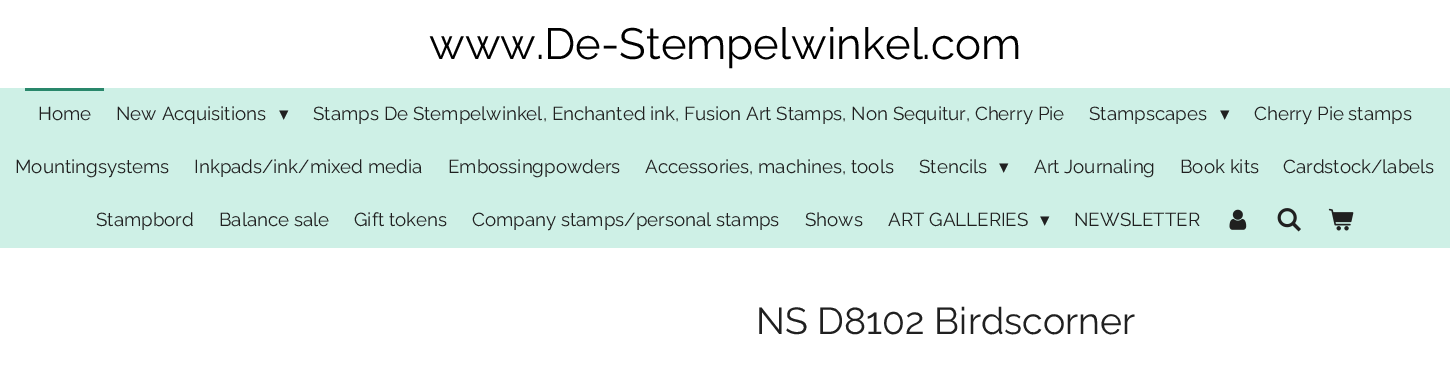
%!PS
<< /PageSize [1450 381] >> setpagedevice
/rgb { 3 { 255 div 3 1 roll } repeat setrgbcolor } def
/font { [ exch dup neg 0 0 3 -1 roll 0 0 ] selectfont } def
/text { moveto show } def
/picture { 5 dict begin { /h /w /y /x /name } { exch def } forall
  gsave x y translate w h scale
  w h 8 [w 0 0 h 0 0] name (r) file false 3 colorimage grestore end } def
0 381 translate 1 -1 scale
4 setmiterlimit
255 255 255 rgb
0 0 1450 381 rectfill
206 240 230 rgb
0 88 1450 160 rectfill
41 135 107 rgb
25 88 79 3 rectfill
(img_01.rgb) 1229 209 18 21 picture
(img_02.rgb) 1277 208 24 24 picture
(img_03.rgb) 1328 208 26 23 picture
/Raleway-Regular 43.75 font
0 0 0 rgb
(www.De-Stempelwinkel.com) 429 59 text
/Raleway-Regular 18.75 font
32 32 32 rgb
(Home) 38 120 text
(New Acquisitions) 116 120 text
/DejaVuSans-Regular 18.75 font
(▾) 279 120 text
/Raleway-Regular 18.75 font
(Stamps De Stempelwinkel, Enchanted ink, Fusion Art Stamps, Non Sequitur, Cherry Pie) 313 120 text
(Stampscapes) 1089 120 text
/DejaVuSans-Regular 18.75 font
(▾) 1220 120 text
/Raleway-Regular 18.75 font
(Cherry Pie stamps) 1254 120 text
(Mountingsystems) 15 173 text
(Inkpads/ink/mixed media) 194 173 text
(Embossingpowders) 448 173 text
(Accessories, machines, tools) 645 173 text
(Stencils) 919 173 text
/DejaVuSans-Regular 18.75 font
(▾) 999 173 text
/Raleway-Regular 18.75 font
(Art Journaling) 1034 173 text
(Book kits) 1180 173 text
(Cardstock/labels) 1283 173 text
(Stampbord) 96 226 text
(Balance sale) 219 226 text
(Gift tokens) 354 226 text
(Company stamps/personal stamps) 472 226 text
(Shows) 805 226 text
(ART GALLERIES) 888 226 text
/DejaVuSans-Regular 18.75 font
(▾) 1040 226 text
/Raleway-Regular 18.75 font
(NEWSLETTER) 1074 226 text
/Raleway-Regular 37.5 font
(NS D8102 Birdscorner) 756 334 text
showpage
